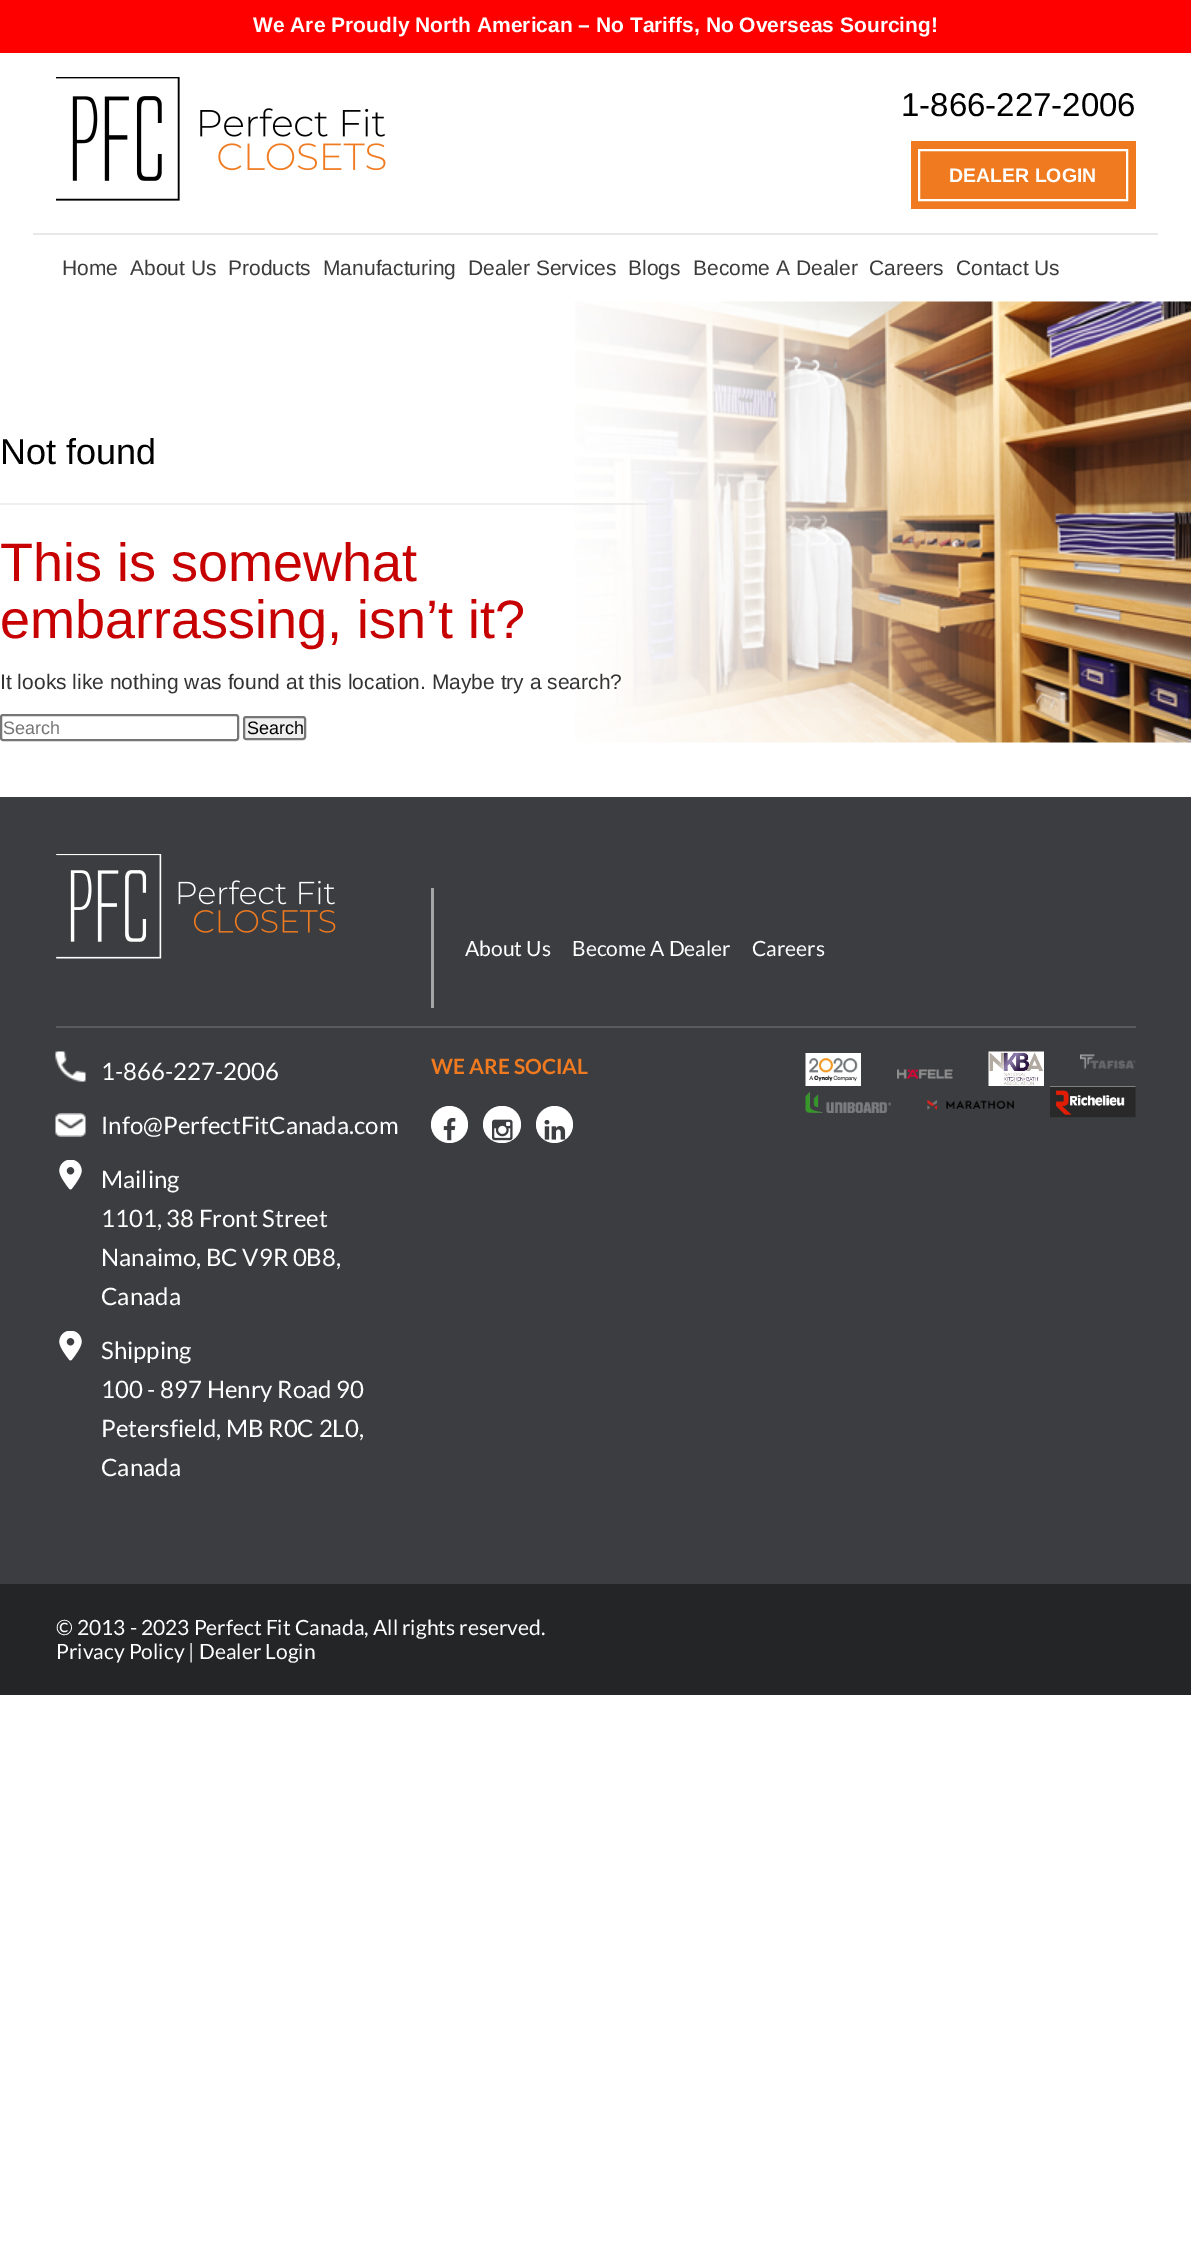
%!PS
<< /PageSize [1191 2260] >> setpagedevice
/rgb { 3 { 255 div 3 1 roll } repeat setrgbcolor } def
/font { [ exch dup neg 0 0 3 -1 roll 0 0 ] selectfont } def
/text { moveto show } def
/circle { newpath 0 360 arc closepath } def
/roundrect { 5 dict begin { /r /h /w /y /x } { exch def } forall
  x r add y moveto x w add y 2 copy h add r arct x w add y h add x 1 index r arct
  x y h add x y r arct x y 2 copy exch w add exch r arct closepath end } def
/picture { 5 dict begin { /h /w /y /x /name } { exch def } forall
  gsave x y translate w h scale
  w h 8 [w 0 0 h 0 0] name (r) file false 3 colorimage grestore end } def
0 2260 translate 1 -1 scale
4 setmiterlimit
255 255 255 rgb
0 0 1191 2260 rectfill
255 0 0 rgb
0 0 1191 53 rectfill
(img_01.rgb) 56 77 330 124 picture
240 122 31 rgb
911 141 225 68 rectfill
255 255 255 rgb
2 setlinewidth
919 150 208 50 rectstroke
232 232 232 rgb
33 233 1125 2 rectfill
(img_02.rgb) 575 301 616 442 picture
238 238 238 rgb
0 503 666 2 rectfill
118 118 118 rgb
1 715 237 25 2 roundrect stroke
239 239 239 rgb
244 717 61 22 2 roundrect gsave fill grestore
118 118 118 rgb
stroke
60 61 64 rgb
0 797 1191 787 rectfill
(img_03.rgb) 56 854 280 105 picture
165 165 165 rgb
431 888 3 120 rectfill
88 90 95 rgb
56 1026 1080 2 rectfill
(img_04.rgb) 55 1051 31 31 picture
(img_05.rgb) 55 1113 31 24 picture
(img_06.rgb) 59 1160 23 30 picture
(img_06.rgb) 59 1331 23 30 picture
255 255 255 rgb
449.5 1124.5 18.5 circle fill
(img_07.rgb) 443 1117 13 24 picture
483 1106 38 37 18.5 roundrect fill
(img_08.rgb) 492 1119 21 22 picture
554.5 1124.5 18.5 circle fill
(img_09.rgb) 544 1119 22 21 picture
(img_10.rgb) 805 1053 56 33 picture
(img_11.rgb) 988 1051 56 35 picture
(img_12.rgb) 1080 1054 56 16 picture
(img_13.rgb) 897 1069 56 10 picture
(img_14.rgb) 805 1092 86 21 picture
(img_15.rgb) 927 1099 87 11 picture
(img_16.rgb) 1050 1086 86 32 picture
36 37 38 rgb
0 1584 1191 111 rectfill
/LiberationSans-Bold 21 font
255 255 255 rgb
(We Are Proudly North American – No Tariffs, No Overseas Sourcing!) 253 32 text
/LiberationSans-Regular 33 font
0 0 0 rgb
(1-866-227-2006) 901 116 text
/LiberationSans-Bold 19.5 font
255 255 255 rgb
(DEALER LOGIN) 949 182 text
/LiberationSans-Regular 21 font
59 59 59 rgb
(Home) 62 275 text
(About Us) 130 275 text
(Products) 228 275 text
(Manufacturing) 323 275 text
(Dealer Services) 468 275 text
(Blogs) 628 275 text
(Become A Dealer) 693 275 text
(Careers) 869 275 text
(Contact Us) 956 275 text
/LiberationSans-Regular 36 font
0 0 0 rgb
(Not found) 0 464 text
/LiberationSans-Regular 54 font
199 0 1 rgb
(This is somewhat) 0 581 text
(embarrassing, isn’t it?) 0 638 text
/LiberationSans-Regular 21 font
51 51 51 rgb
(It looks like nothing was found at this location. Maybe try a search?) 0 689 text
/LiberationSans-Regular 18 font
117 117 117 rgb
(Search) 3 734 text
0 0 0 rgb
(Search) 247 734 text
/Lato-Regular 21 font
255 255 255 rgb
(About Us) 465 956 text
(Become A Dealer) 572 956 text
(Careers) 752 956 text
/Lato-Regular 24 font
(1-866-227-2006) 101 1080 text
(Info@PerfectFitCanada.com) 101 1134 text
(Mailing) 101 1188 text
(1101, 38 Front Street) 101 1227 text
(Nanaimo, BC V9R 0B8,) 101 1266 text
(Canada) 101 1305 text
(Shipping) 101 1359 text
(100 - 897 Henry Road 90) 101 1398 text
(Petersfield, MB R0C 2L0,) 101 1437 text
(Canada) 101 1476 text
/Lato-Bold 21 font
240 122 31 rgb
(WE ARE SOCIAL) 431 1074 text
/Lato-Regular 21 font
255 255 255 rgb
(© 2013 - 2023 Perfect Fit Canada, All rights reserved.) 56 1635 text
(Privacy Policy | Dealer Login) 56 1659 text
showpage
